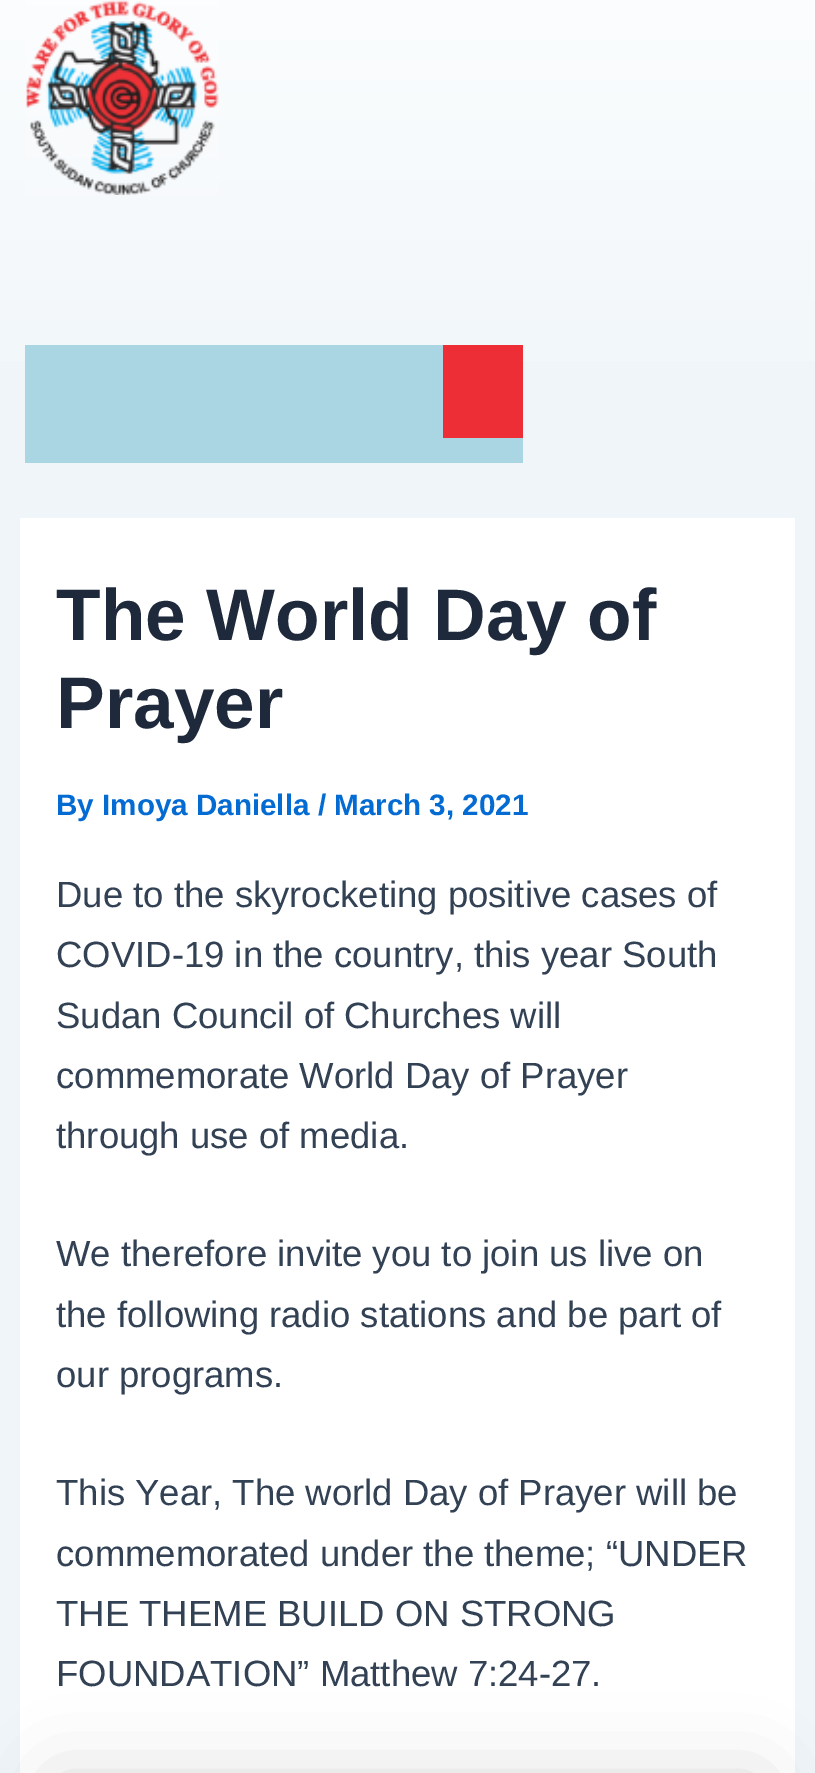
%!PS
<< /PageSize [815 1773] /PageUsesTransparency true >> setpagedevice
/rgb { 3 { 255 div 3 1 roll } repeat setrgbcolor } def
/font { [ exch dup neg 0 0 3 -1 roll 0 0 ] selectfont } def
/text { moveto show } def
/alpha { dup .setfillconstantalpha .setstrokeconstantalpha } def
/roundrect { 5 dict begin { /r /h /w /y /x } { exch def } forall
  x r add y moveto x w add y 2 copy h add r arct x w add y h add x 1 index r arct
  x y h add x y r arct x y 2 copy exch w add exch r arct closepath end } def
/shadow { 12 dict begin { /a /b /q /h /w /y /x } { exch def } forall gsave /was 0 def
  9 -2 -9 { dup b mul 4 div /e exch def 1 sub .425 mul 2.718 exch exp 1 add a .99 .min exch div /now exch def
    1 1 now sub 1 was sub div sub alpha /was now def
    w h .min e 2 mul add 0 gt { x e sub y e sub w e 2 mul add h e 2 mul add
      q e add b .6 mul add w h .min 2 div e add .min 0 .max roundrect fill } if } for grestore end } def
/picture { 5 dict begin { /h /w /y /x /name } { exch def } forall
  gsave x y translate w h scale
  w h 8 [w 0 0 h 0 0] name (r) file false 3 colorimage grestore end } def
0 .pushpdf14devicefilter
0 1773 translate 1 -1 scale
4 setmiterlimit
240 245 250 rgb
0 0 815 1773 rectfill
gsave 0 0 moveto 815 0 rlineto 0 361 rlineto -815 0 rlineto closepath clip newpath
<< /ShadingType 2 /ColorSpace /DeviceRGB /Coords [408 -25 408 463] /Extend [true true] /Function << /FunctionType 2 /Domain [0 1] /C0 [0.988 0.992 0.996] /C1 [0.941 0.961 0.976] /N 1 >> >> shfill grestore
gsave 25 345 moveto 498 0 rlineto 0 118 rlineto -498 0 rlineto closepath clip newpath
<< /ShadingType 2 /ColorSpace /DeviceRGB /Coords [408 -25 408 463] /Extend [true true] /Function << /FunctionType 2 /Domain [0 1] /C0 [0.686 0.855 0.898] /C1 [0.667 0.839 0.89] /N 1 >> >> shfill grestore
(img_01.rgb) 26 0 193 195 picture
238 46 55 rgb
443 345 80 93 rectfill
255 255 255 rgb
20 518 775 1255 rectfill
0 0 0 rgb
55 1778 705 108 0 37.5 0.15 shadow
/LiberationSans-Bold 73 font
30 41 59 rgb
(The World Day of) 56 640 text
(Prayer) 56 728 text
/LiberationSans-Bold 29.6 font
4 107 210 rgb
(By Imoya Daniella / March 3, 2021) 56 815 text
/LiberationSans-Regular 36.5 font
51 65 85 rgb
(Due to the skyrocketing positive cases of) 56 907 text
(COVID-19 in the country, this year South) 56 967 text
(Sudan Council of Churches will) 56 1028 text
(commemorate World Day of Prayer) 56 1088 text
(through use of media.) 56 1148 text
(We therefore invite you to join us live on) 56 1266 text
(the following radio stations and be part of) 56 1327 text
(our programs.) 56 1387 text
(This Year, The world Day of Prayer will be) 56 1505 text
(commemorated under the theme; “UNDER) 56 1566 text
(THE THEME BUILD ON STRONG) 56 1626 text
(FOUNDATION” Matthew 7:24-27.) 56 1686 text
.poppdf14devicefilter showpage
